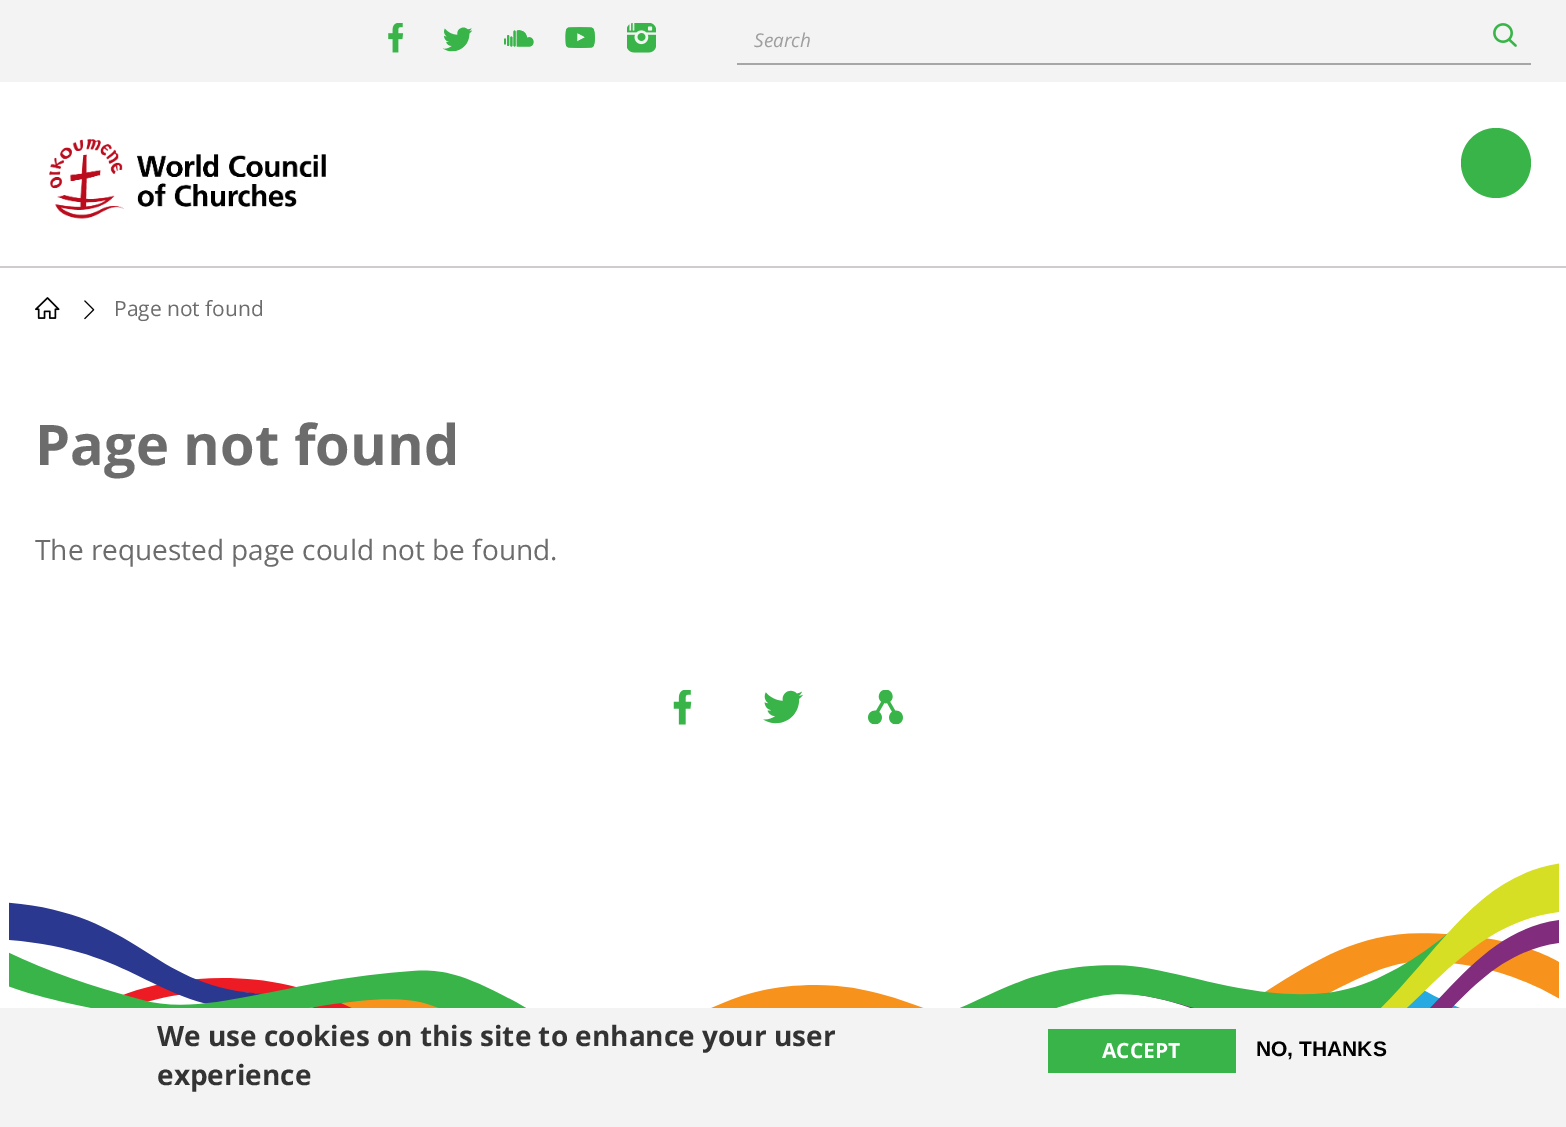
%!PS
<< /PageSize [1566 1127] >> setpagedevice
/rgb { 3 { 255 div 3 1 roll } repeat setrgbcolor } def
/font { [ exch dup neg 0 0 3 -1 roll 0 0 ] selectfont } def
/text { moveto show } def
/circle { newpath 0 360 arc closepath } def
/picture { 5 dict begin { /h /w /y /x /name } { exch def } forall
  gsave x y translate w h scale
  w h 8 [w 0 0 h 0 0] name (r) file false 3 colorimage grestore end } def
0 1127 translate 1 -1 scale
4 setmiterlimit
255 255 255 rgb
0 0 1566 1127 rectfill
243 243 243 rgb
0 0 1566 82 rectfill
(img_01.rgb) 388 23 16 30 picture
(img_02.rgb) 443 27 30 25 picture
(img_03.rgb) 504 30 30 17 picture
(img_04.rgb) 565 27 30 21 picture
(img_05.rgb) 627 23 29 30 picture
166 166 166 rgb
737 63 794 2 rectfill
(img_06.rgb) 1493 23 24 24 picture
209 203 203 rgb
0 266 1566 2 rectfill
(img_07.rgb) 49 138 277 81 picture
56 180 73 rgb
1496 163 35 circle fill
(img_08.rgb) 35 297 25 22 picture
(img_09.rgb) 84 300 11 20 picture
(img_10.rgb) 673 690 19 35 picture
(img_11.rgb) 763 690 40 34 picture
(img_12.rgb) 868 690 35 35 picture
(img_13.rgb) 9 863 1550 145 picture
243 243 243 rgb
0 1008 1566 119 rectfill
56 180 73 rgb
1048 1029 188 44 rectfill
/OpenSans-Italic 19 font
158 158 158 rgb
(Search) 754 47 text
/OpenSans-Regular 21 font
108 108 108 rgb
(Page not found) 114 316 text
/OpenSans-Bold 56 font
(Page not found) 35 465 text
/OpenSans-Regular 28 font
(The requested page could not be found.) 35 560 text
/OpenSans-Bold 28 font
51 51 51 rgb
(We use cookies on this site to enhance your user) 157 1046 text
(experience) 157 1085 text
/OpenSans-Bold 21 font
255 255 255 rgb
(ACCEPT) 1102 1058 text
/LiberationSans-Bold 21 font
0 0 0 rgb
(NO, THANKS) 1256 1056 text
showpage
